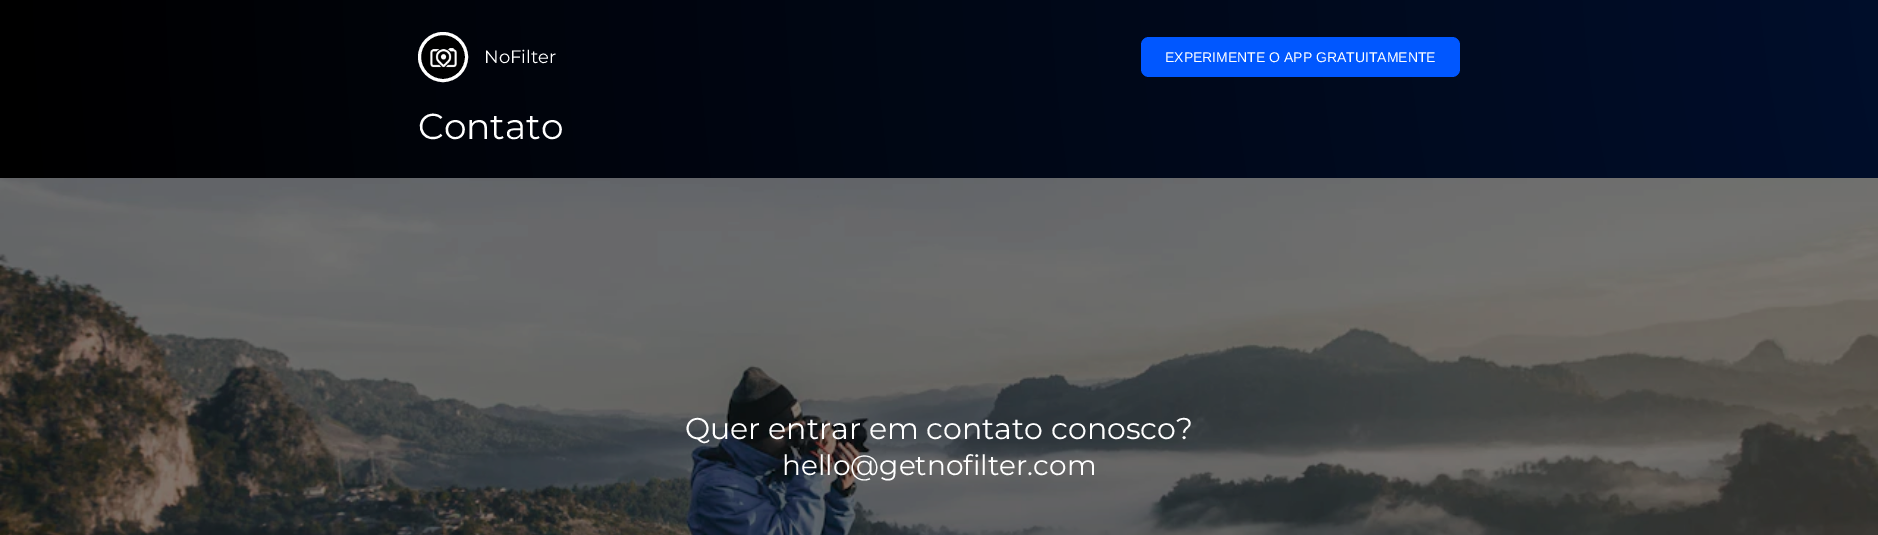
%!PS
<< /PageSize [1878 535] >> setpagedevice
/rgb { 3 { 255 div 3 1 roll } repeat setrgbcolor } def
/font { [ exch dup neg 0 0 3 -1 roll 0 0 ] selectfont } def
/text { moveto show } def
/circle { newpath 0 360 arc closepath } def
/roundrect { 5 dict begin { /r /h /w /y /x } { exch def } forall
  x r add y moveto x w add y 2 copy h add r arct x w add y h add x 1 index r arct
  x y h add x y r arct x y 2 copy exch w add exch r arct closepath end } def
/picture { 5 dict begin { /h /w /y /x /name } { exch def } forall
  gsave x y translate w h scale
  w h 8 [w 0 0 h 0 0] name (r) file false 3 colorimage grestore end } def
0 535 translate 1 -1 scale
4 setmiterlimit
255 255 255 rgb
0 0 1878 535 rectfill
gsave 0 0 moveto 1878 0 rlineto 0 178 rlineto -1878 0 rlineto closepath clip newpath 2817 -89 translate 2830 2830 scale
<< /ShadingType 3 /ColorSpace /DeviceRGB /Coords [0 0 0 0 0 1] /Extend [true true] /Function << /FunctionType 3 /Domain [0 1] /Functions [<< /FunctionType 2 /Domain [0 1] /C0 [0 0.067 0.2] /C1 [0 0.067 0.2] /N 1 >> << /FunctionType 2 /Domain [0 1] /C0 [0 0.067 0.2] /C1 [0 0 0] /N 1 >>] /Bounds [0.2] /Encode [0 1 0 1] >> >> shfill grestore
0 0 0 rgb
443 57 25 circle fill
(img_01.rgb) 430 48 27 20 picture
255 255 255 rgb
3 setlinewidth
443 57 23.5 circle stroke
0 87 255 rgb
1141 37 319 40 8 roundrect fill
(img_02.rgb) 0 178 1878 357 picture
/Montserrat-Regular 18 font
255 255 255 rgb
(NoFilter) 484 63 text
/LiberationSans-Regular 14 font
(EXPERIMENTE O APP GRATUITAMENTE) 1165 62 text
/Montserrat-Regular 36 font
(Contato) 418 139 text
/Montserrat-Regular 30 font
(Quer entrar em contato conosco?) 685 439 text
/Montserrat-Regular 28 font
(hello@getnofilter.com) 782 475 text
showpage
